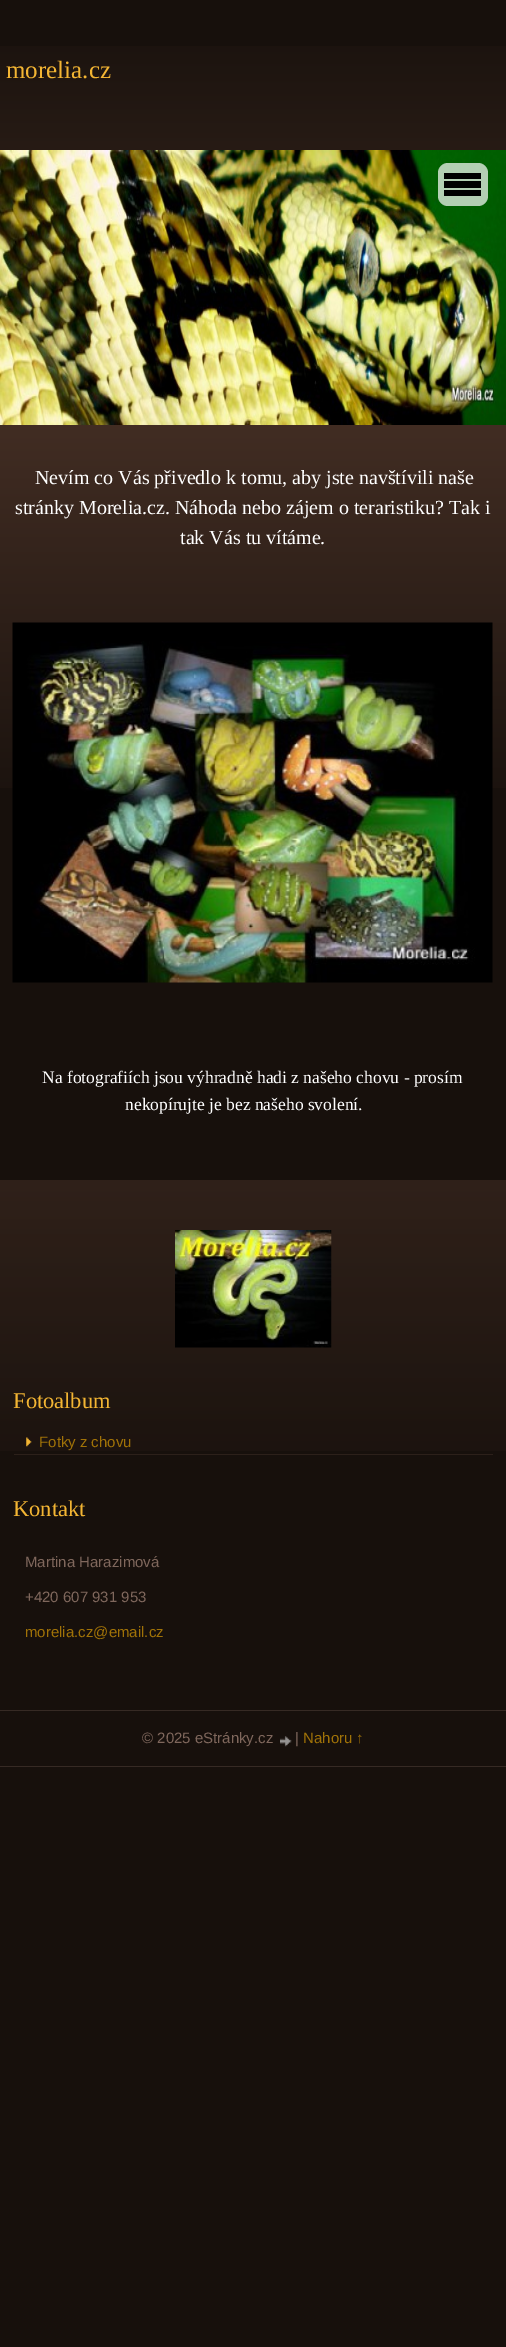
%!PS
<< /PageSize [506 2347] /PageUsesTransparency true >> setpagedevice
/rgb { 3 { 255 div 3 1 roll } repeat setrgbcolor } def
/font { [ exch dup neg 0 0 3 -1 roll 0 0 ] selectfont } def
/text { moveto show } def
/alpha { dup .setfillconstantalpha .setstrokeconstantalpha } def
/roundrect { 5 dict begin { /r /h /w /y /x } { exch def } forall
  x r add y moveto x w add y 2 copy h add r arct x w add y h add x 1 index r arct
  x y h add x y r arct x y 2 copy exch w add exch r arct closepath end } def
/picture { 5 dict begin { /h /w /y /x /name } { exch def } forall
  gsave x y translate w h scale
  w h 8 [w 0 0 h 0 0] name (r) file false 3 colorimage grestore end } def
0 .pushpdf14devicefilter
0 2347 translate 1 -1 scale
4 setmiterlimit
23 16 12 rgb
0 0 506 2347 rectfill
(img_01.rgb) 0 46 506 742 picture
(img_02.rgb) 0 150 506 275 picture
(img_03.rgb) 12 622 481 361 picture
(img_04.rgb) 0 1180 506 271 picture
(img_05.rgb) 175 1230 157 118 picture
(img_06.rgb) 26 1437 6 10 picture
44 32 26 rgb
14 1454 479 1 rectfill
0.7 alpha
255 255 255 rgb
438 163 50 43 10 roundrect fill
1 alpha
0 0 0 rgb
444 173 37 6 rectfill
444 181 37 7 rectfill
444 190 37 6 rectfill
54 42 36 rgb
0 1710 506 1 rectfill
0 1766 506 1 rectfill
(img_07.rgb) 280 1736 12 11 picture
/LiberationSerif-Regular 25 font
243 181 51 rgb
(morelia.cz) 6 78 text
/LiberationSerif-Regular 20 font
255 255 255 rgb
(Nevím co Vás přivedlo k tomu, aby jste navštívili naše) 35 484 text
(stránky Morelia.cz. Náhoda nebo zájem o teraristiku? Tak i) 15 514 text
(tak Vás tu vítáme.) 180 544 text
/LiberationSerif-Regular 17.5 font
(Na fotografiích jsou výhradně hadi z našeho chovu - prosím) 42 1083 text
(nekopírujte je bez našeho svolení.) 125 1110 text
/LiberationSerif-Regular 22.5 font
243 181 51 rgb
(Fotoalbum) 13 1408 text
/LiberationSans-Regular 15 font
160 114 7 rgb
(Fotky z chovu) 39 1447 text
/LiberationSerif-Regular 22.5 font
243 181 51 rgb
(Kontakt) 13 1516 text
/LiberationSans-Regular 15 font
127 103 92 rgb
(Martina Harazimová) 25 1567 text
(+420 607 931 953) 25 1602 text
160 114 7 rgb
(morelia.cz@email.cz) 25 1637 text
127 103 92 rgb
(© 2025 eStránky.cz) 142 1743 text
(|) 295 1743 text
160 114 7 rgb
(Nahoru ↑) 303 1743 text
.poppdf14devicefilter showpage
